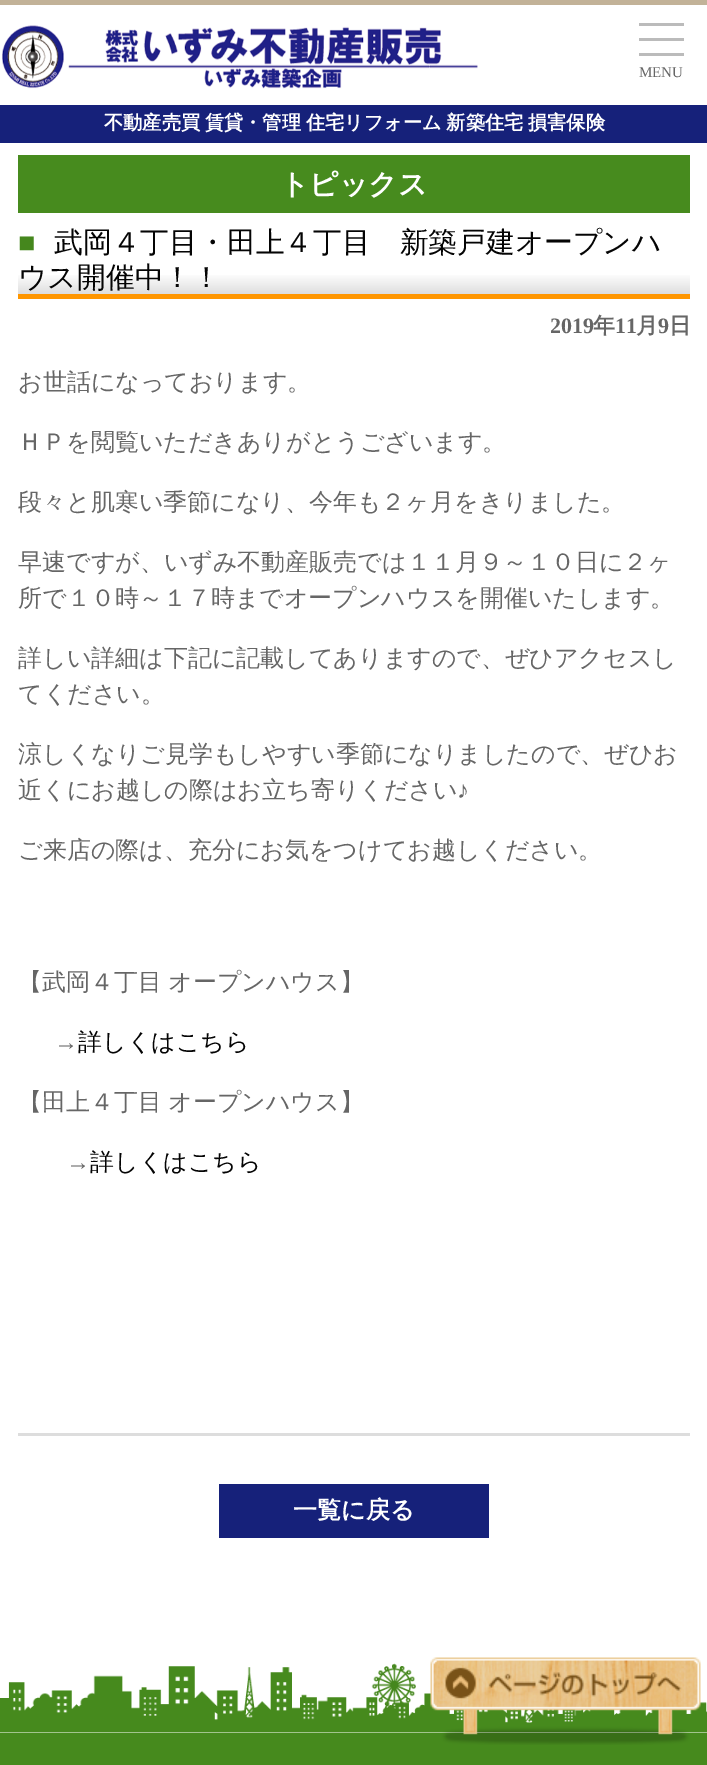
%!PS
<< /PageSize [707 1765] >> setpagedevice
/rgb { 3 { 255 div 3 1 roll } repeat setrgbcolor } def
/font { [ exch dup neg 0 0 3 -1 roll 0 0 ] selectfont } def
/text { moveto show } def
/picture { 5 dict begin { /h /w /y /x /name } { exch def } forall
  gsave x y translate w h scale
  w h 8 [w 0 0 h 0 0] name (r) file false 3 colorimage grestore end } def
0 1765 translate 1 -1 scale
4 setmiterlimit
255 255 255 rgb
0 0 707 1765 rectfill
187 187 187 rgb
639 23 45 3 rectfill
639 38 45 3 rectfill
639 53 45 3 rectfill
194 178 152 rgb
0 0 707 5 rectfill
(img_01.rgb) 2 25 476 64 picture
22 33 122 rgb
0 105 707 38 rectfill
71 139 30 rgb
18 155 672 58 rectfill
gsave 18 275 moveto 672 0 rlineto 0 19 rlineto -672 0 rlineto closepath clip newpath
<< /ShadingType 2 /ColorSpace /DeviceRGB /Coords [354 225 354 294] /Extend [true true] /Function << /FunctionType 3 /Domain [0 1] /Functions [<< /FunctionType 2 /Domain [0 1] /C0 [1 1 1] /C1 [1 1 1] /N 1 >> << /FunctionType 2 /Domain [0 1] /C0 [1 1 1] /C1 [0.871 0.871 0.871] /N 1 >>] /Bounds [0.7] /Encode [0 1 0 1] >> >> shfill grestore
255 150 0 rgb
18 294 672 5 rectfill
221 221 221 rgb
18 1433 672 3 rectfill
22 33 122 rgb
219 1484 270 54 rectfill
(img_03.rgb) 0 1663 707 70 picture
70 138 29 rgb
0 1733 707 32 rectfill
(img_02.rgb) 430 1657 271 88 picture
/LiberationSerif-Regular 15 font
102 102 102 rgb
(MENU) 639 77 text
/WenQuanYiZenHei-Bold 19.2 font
255 255 255 rgb
104 129 moveto -1 0 32 (不動産売買 賃貸・管理 住宅リフォーム 新築住宅 損害保険) widthshow
/WenQuanYiZenHei-Bold 28.8 font
(トピックス) 280 194 text
/LiberationSerif-Regular 28.8 font
69 135 29 rgb
(■) 18 252 text
/WenQuanYiZenHei-Medium 28.8 font
4 4 4 rgb
(武岡４丁目・田上４丁目　新築戸建オープンハ) 54 252 text
(ウス開催中！！) 18 287 text
/LiberationSerif-Bold 22 font
102 102 102 rgb
(2019) 550 333 text
/WenQuanYiZenHei-Bold 22 font
(年) 593 333 text
/LiberationSerif-Bold 22 font
(11) 615 333 text
/WenQuanYiZenHei-Bold 22 font
(月) 636 333 text
/LiberationSerif-Bold 22 font
(9) 658 333 text
/WenQuanYiZenHei-Bold 22 font
(日) 669 333 text
/WenQuanYiZenHei-Medium 24 font
(お世話になっております。) 18 390 text
(ＨＰを閲覧いただきありがとうございます。) 18 450 text
(段々と肌寒い季節になり、今年も２ヶ月をきりました。) 18 510 text
(早速ですが、いずみ不動産販売では１１月９～１０日に２ヶ) 18 570 text
(所で１０時～１７時までオープンハウスを開催いたします。) 18 606 text
(詳しい詳細は下記に記載してありますので、ぜひアクセスし) 18 666 text
(てください。) 18 702 text
(涼しくなりご見学もしやすい季節になりましたので、ぜひお) 18 762 text
(近くにお越しの際はお立ち寄りください) 18 798 text
/LiberationSerif-Regular 24 font
(♪) 457 798 text
/WenQuanYiZenHei-Medium 24 font
(ご来店の際は、充分にお気をつけてお越しください。) 18 858 text
18 990 moveto -1 0 32 (【武岡４丁目 オープンハウス】) widthshow
/LiberationSerif-Regular 24 font
(→) 54 1050 text
/WenQuanYiZenHei-Medium 24 font
4 4 4 rgb
(詳しくはこちら) 78 1050 text
102 102 102 rgb
18 1110 moveto -1 0 32 (【田上４丁目 オープンハウス】) widthshow
/LiberationSerif-Regular 24 font
(→) 66 1170 text
/WenQuanYiZenHei-Medium 24 font
4 4 4 rgb
(詳しくはこちら) 90 1170 text
/WenQuanYiZenHei-Bold 24 font
255 255 255 rgb
(一覧に戻る) 293 1518 text
showpage
